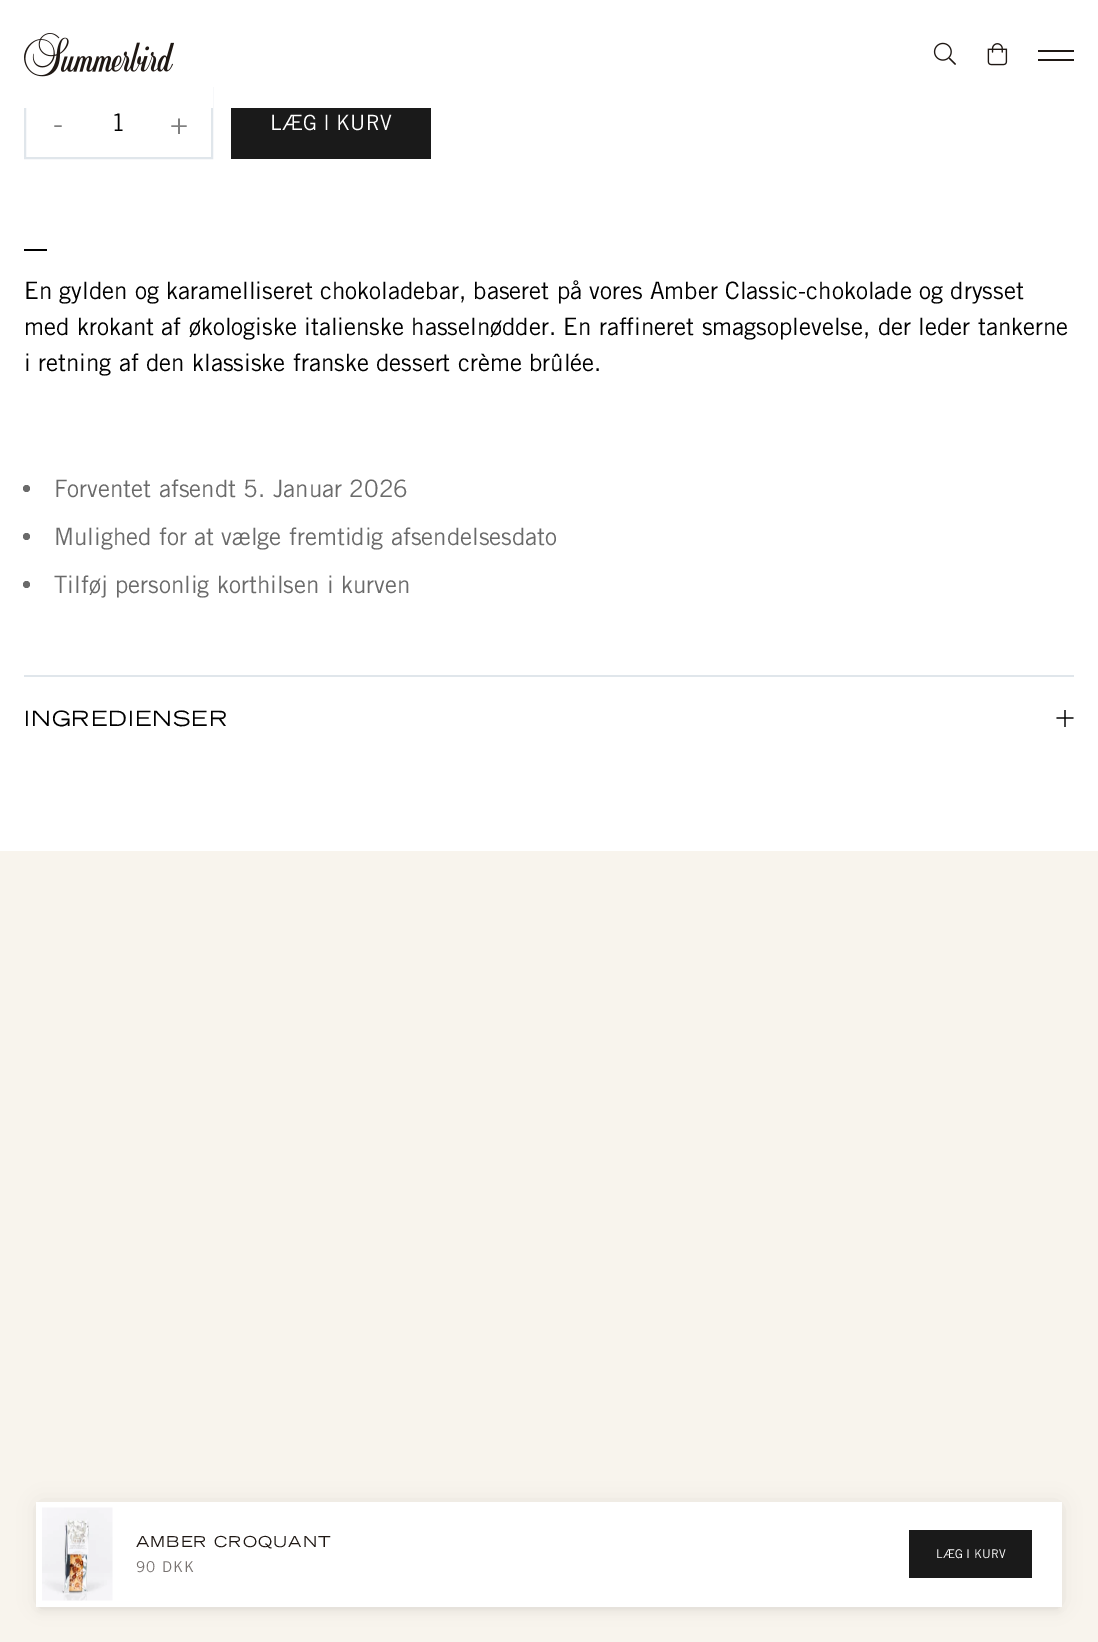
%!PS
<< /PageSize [1098 1642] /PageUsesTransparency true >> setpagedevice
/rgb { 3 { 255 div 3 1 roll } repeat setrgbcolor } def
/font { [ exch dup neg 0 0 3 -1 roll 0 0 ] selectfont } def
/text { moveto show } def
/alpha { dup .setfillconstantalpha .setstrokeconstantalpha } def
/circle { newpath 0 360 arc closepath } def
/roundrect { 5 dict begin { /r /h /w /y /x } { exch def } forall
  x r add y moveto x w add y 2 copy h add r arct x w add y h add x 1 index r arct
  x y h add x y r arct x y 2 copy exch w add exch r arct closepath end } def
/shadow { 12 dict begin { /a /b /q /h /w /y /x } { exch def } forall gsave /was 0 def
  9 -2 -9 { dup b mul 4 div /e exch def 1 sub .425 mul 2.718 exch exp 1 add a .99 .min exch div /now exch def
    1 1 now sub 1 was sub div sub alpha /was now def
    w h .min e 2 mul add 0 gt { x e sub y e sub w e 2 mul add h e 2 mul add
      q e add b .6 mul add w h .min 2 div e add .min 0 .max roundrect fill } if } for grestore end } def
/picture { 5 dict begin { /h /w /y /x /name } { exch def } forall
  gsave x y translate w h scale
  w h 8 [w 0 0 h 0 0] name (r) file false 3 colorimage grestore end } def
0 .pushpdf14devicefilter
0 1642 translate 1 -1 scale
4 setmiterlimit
255 255 255 rgb
0 0 1098 1642 rectfill
224 230 235 rgb
2 setlinewidth
25 88 187 70 rectstroke
255 255 255 rgb
24 87 189 21 rectfill
(img_01.rgb) 24 33 150 44 picture
(img_02.rgb) 933 42 23 23 picture
(img_03.rgb) 987 43 21 23 picture
31 24 20 rgb
1038 50 36 2 rectfill
1038 59 36 2 rectfill
26 26 26 rgb
231 108 200 51 rectfill
0 0 0 rgb
24 249 23 2 rectfill
106 106 106 rgb
26.5 488.5 3.5 circle fill
26.5 536.5 3.5 circle fill
26.5 584.5 3.5 circle fill
224 230 235 rgb
24 675 1050 2 rectfill
0 0 0 rgb
1.3 setlinewidth
1056.5 718 moveto 17 0 rlineto 1065 710 moveto 0 17 rlineto stroke
248 244 237 rgb
0 851 1098 791 rectfill
0 0 0 rgb
39 1511 1020 99 0 4.5 0.05 shadow
41 1506 1017 96 0 11 0.1 shadow
255 255 255 rgb
36 1502 1026 105 rectfill
(img_04.rgb) 42 1507 71 94 picture
26 26 26 rgb
909 1530 123 48 rectfill
/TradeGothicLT-Regular 30 font
128 128 128 rgb
(-) 53 134 text
/TradeGothicLT-Regular 24 font
0 0 0 rgb
(1) 111 131 text
/TradeGothicLT-Regular 30 font
128 128 128 rgb
(+) 170 134 text
/TradeGothicLT-Regular 21 font
255 255 255 rgb
(LÆG I KURV) 270 130 text
/TradeGothicLT-Regular 24 font
0 0 0 rgb
(En gylden og karamelliseret chokoladebar, baseret på vores Amber Classic-chokolade og drysset) 24 299 text
(med krokant af økologiske italienske hasselnødder. En raffineret smagsoplevelse, der leder tankerne) 24 335 text
(i retning af den klassiske franske dessert crème brûlée.) 24 371 text
106 106 106 rgb
(Forventet afsendt 5. Januar 2026) 54 497 text
(Mulighed for at vælge fremtidig afsendelsesdato) 54 545 text
(Tilføj personlig korthilsen i kurven) 54 593 text
/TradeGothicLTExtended-Regular 21 font
0 0 0 rgb
24 726 moveto 1 0 (INGREDIENSER) ashow
/TradeGothicLTExtended-Regular 15 font
31 24 20 rgb
136 1547 moveto 1 0 (AMBER CROQUANT) ashow
/TradeGothicLT-Regular 15 font
121 116 114 rgb
136 1572 moveto 1 0 (90 DKK) ashow
/TradeGothicLT-Regular 12 font
255 255 255 rgb
(LÆG I KURV) 936 1558 text
.poppdf14devicefilter showpage
